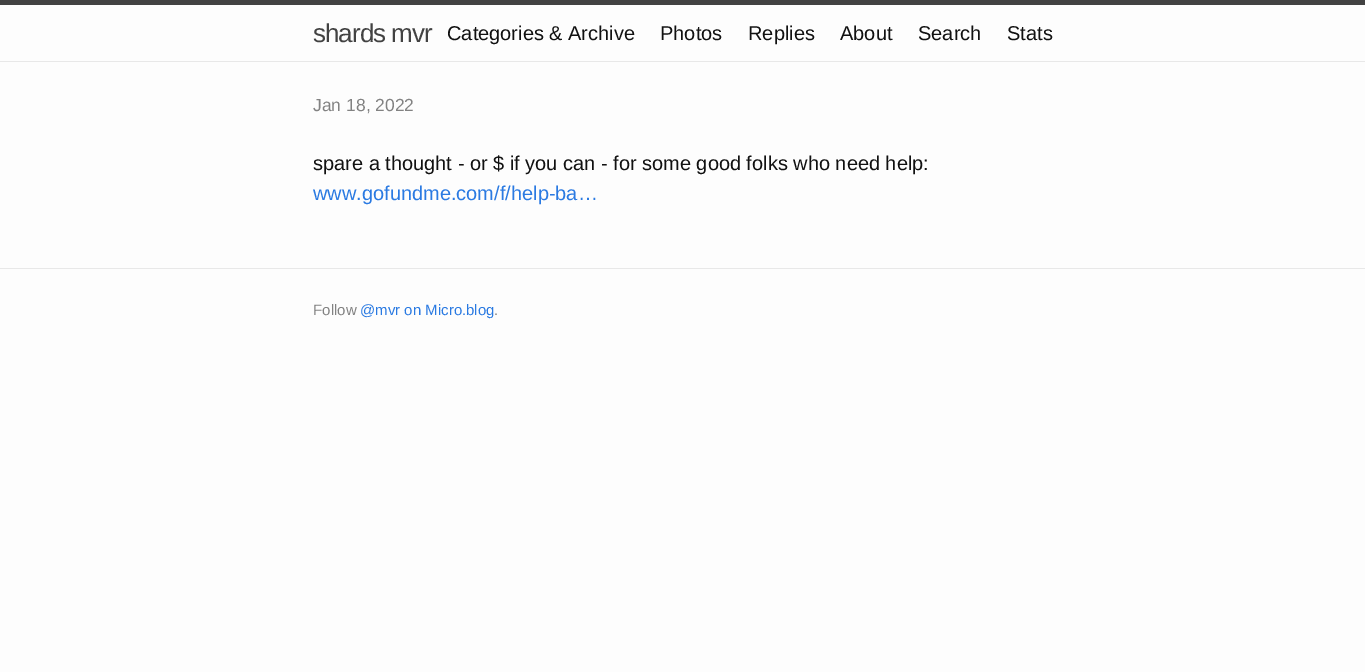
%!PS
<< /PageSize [1365 672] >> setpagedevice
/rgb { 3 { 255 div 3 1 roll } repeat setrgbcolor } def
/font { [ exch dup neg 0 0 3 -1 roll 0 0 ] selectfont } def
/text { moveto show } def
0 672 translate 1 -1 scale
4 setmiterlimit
253 253 253 rgb
0 0 1365 672 rectfill
66 66 66 rgb
0 0 1365 5 rectfill
232 232 232 rgb
0 61 1365 1 rectfill
0 268 1365 1 rectfill
/LiberationSans-Regular 26 font
66 66 66 rgb
313 42 moveto -1 0 (shards mvr) ashow
/LiberationSans-Regular 20 font
17 17 17 rgb
(Categories & Archive) 447 40 text
(Photos) 660 40 text
(Replies) 748 40 text
(About) 840 40 text
(Search) 918 40 text
(Stats) 1007 40 text
/LiberationSans-Regular 17.5 font
130 130 130 rgb
(Jan 18, 2022) 313 111 text
/LiberationSans-Regular 20 font
17 17 17 rgb
(spare a thought - or $ if you can - for some good folks who need help:) 313 170 text
42 122 226 rgb
(www.gofundme.com/f/help-ba…) 313 200 text
/LiberationSans-Regular 15 font
130 130 130 rgb
(Follow) 313 315 text
42 122 226 rgb
(@mvr on Micro.blog) 360 315 text
130 130 130 rgb
(.) 494 315 text
showpage
